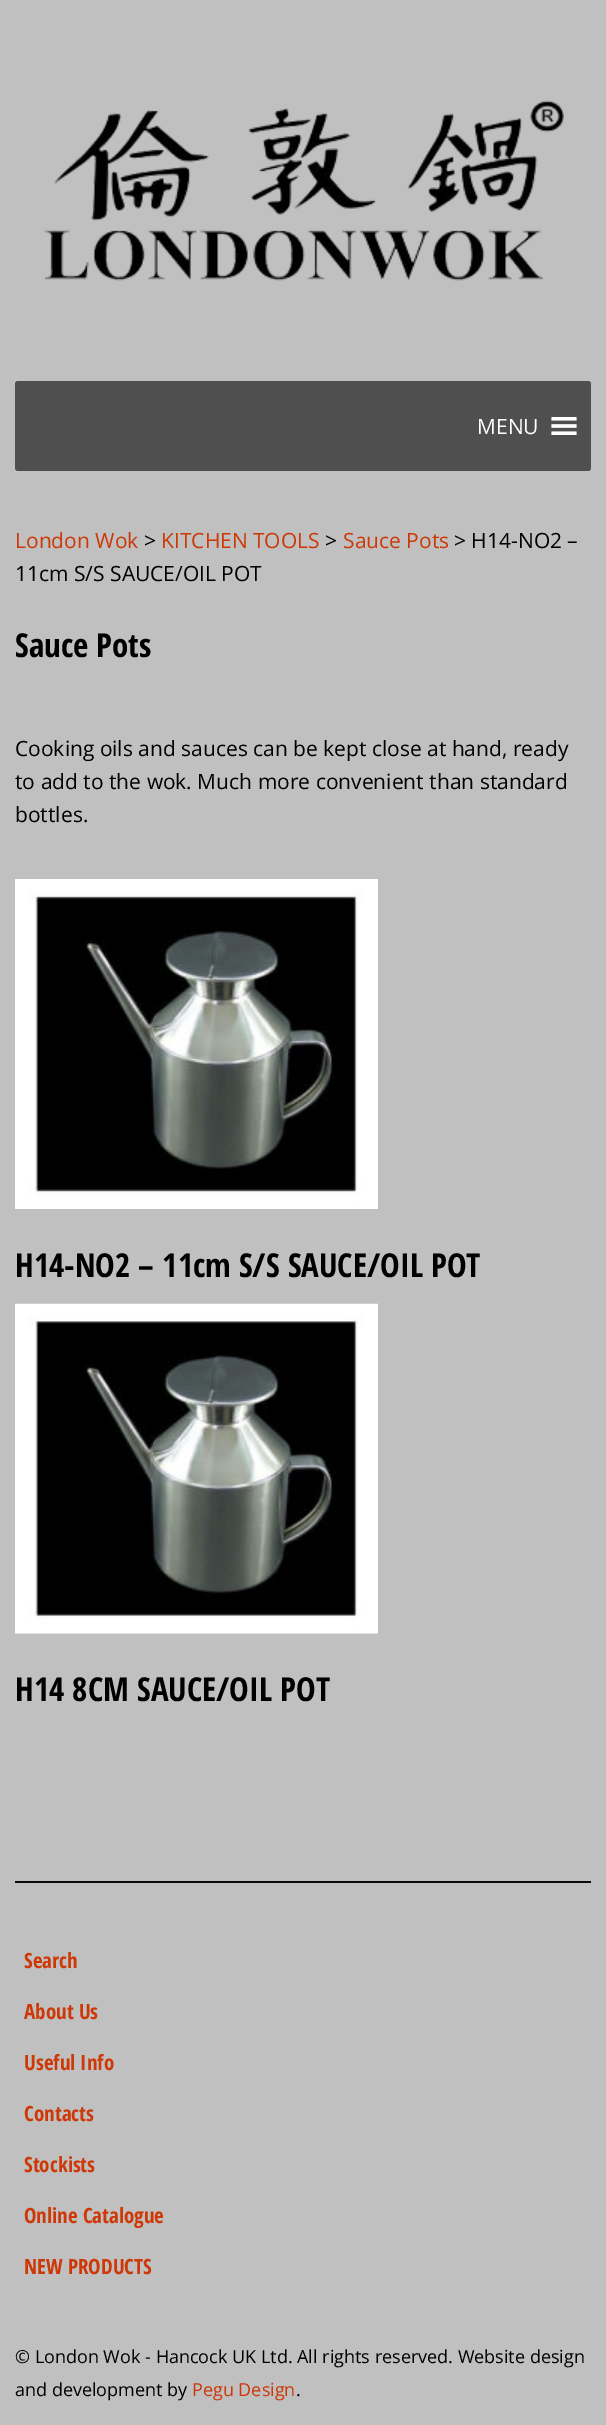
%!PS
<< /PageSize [606 2425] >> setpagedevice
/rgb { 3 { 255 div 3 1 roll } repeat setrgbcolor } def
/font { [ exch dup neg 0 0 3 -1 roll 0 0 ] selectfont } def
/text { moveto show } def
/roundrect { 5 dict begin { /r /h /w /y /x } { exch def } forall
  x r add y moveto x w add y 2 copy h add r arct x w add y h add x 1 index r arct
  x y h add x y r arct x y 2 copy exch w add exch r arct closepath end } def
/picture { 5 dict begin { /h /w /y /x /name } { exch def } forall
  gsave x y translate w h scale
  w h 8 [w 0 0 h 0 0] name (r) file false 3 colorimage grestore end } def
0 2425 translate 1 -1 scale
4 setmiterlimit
192 192 192 rgb
0 0 606 2425 rectfill
(img_01.rgb) 44 100 520 181 picture
79 79 79 rgb
15 381 576 90 3 roundrect fill
(img_02.rgb) 551 417 26 18 picture
(img_03.rgb) 15 879 363 330 picture
(img_04.rgb) 15 1303 363 331 picture
10 10 10 rgb
15 1881 576 2 rectfill
/OpenSans-Regular 21 font
255 255 255 rgb
(MENU) 477 434 text
205 56 6 rgb
(London Wok) 15 548 text
0 0 0 rgb
(>) 144 548 text
205 56 6 rgb
(KITCHEN TOOLS) 161 548 text
0 0 0 rgb
(>) 325 548 text
205 56 6 rgb
(Sauce Pots) 343 548 text
0 0 0 rgb
(> H14-NO2 –) 454 548 text
(11cm S/S SAUCE/OIL POT) 15 581 text
/OpenSansCondensed-Bold 33 font
(Sauce Pots) 15 657 text
/OpenSans-Regular 21 font
(Cooking oils and sauces can be kept close at hand, ready) 15 756 text
(to add to the wok. Much more convenient than standard) 15 789 text
(bottles.) 15 822 text
/OpenSansCondensed-Bold 33 font
(H14-NO2 – 11cm S/S SAUCE/OIL POT) 15 1277 text
(H14 8CM SAUCE/OIL POT) 15 1701 text
/OpenSansCondensed-Bold 21 font
205 56 6 rgb
(Search) 24 1968 text
(About Us) 24 2019 text
(Useful Info) 24 2070 text
(Contacts) 24 2121 text
(Stockists) 24 2172 text
(Online Catalogue) 24 2223 text
(NEW PRODUCTS) 24 2274 text
/OpenSans-Regular 18 font
0 0 0 rgb
(© London Wok - Hancock UK Ltd. All rights reserved. Website design) 15 2363 text
(and development by) 15 2396 text
205 56 6 rgb
(Pegu Design) 192 2396 text
0 0 0 rgb
(.) 296 2396 text
showpage
